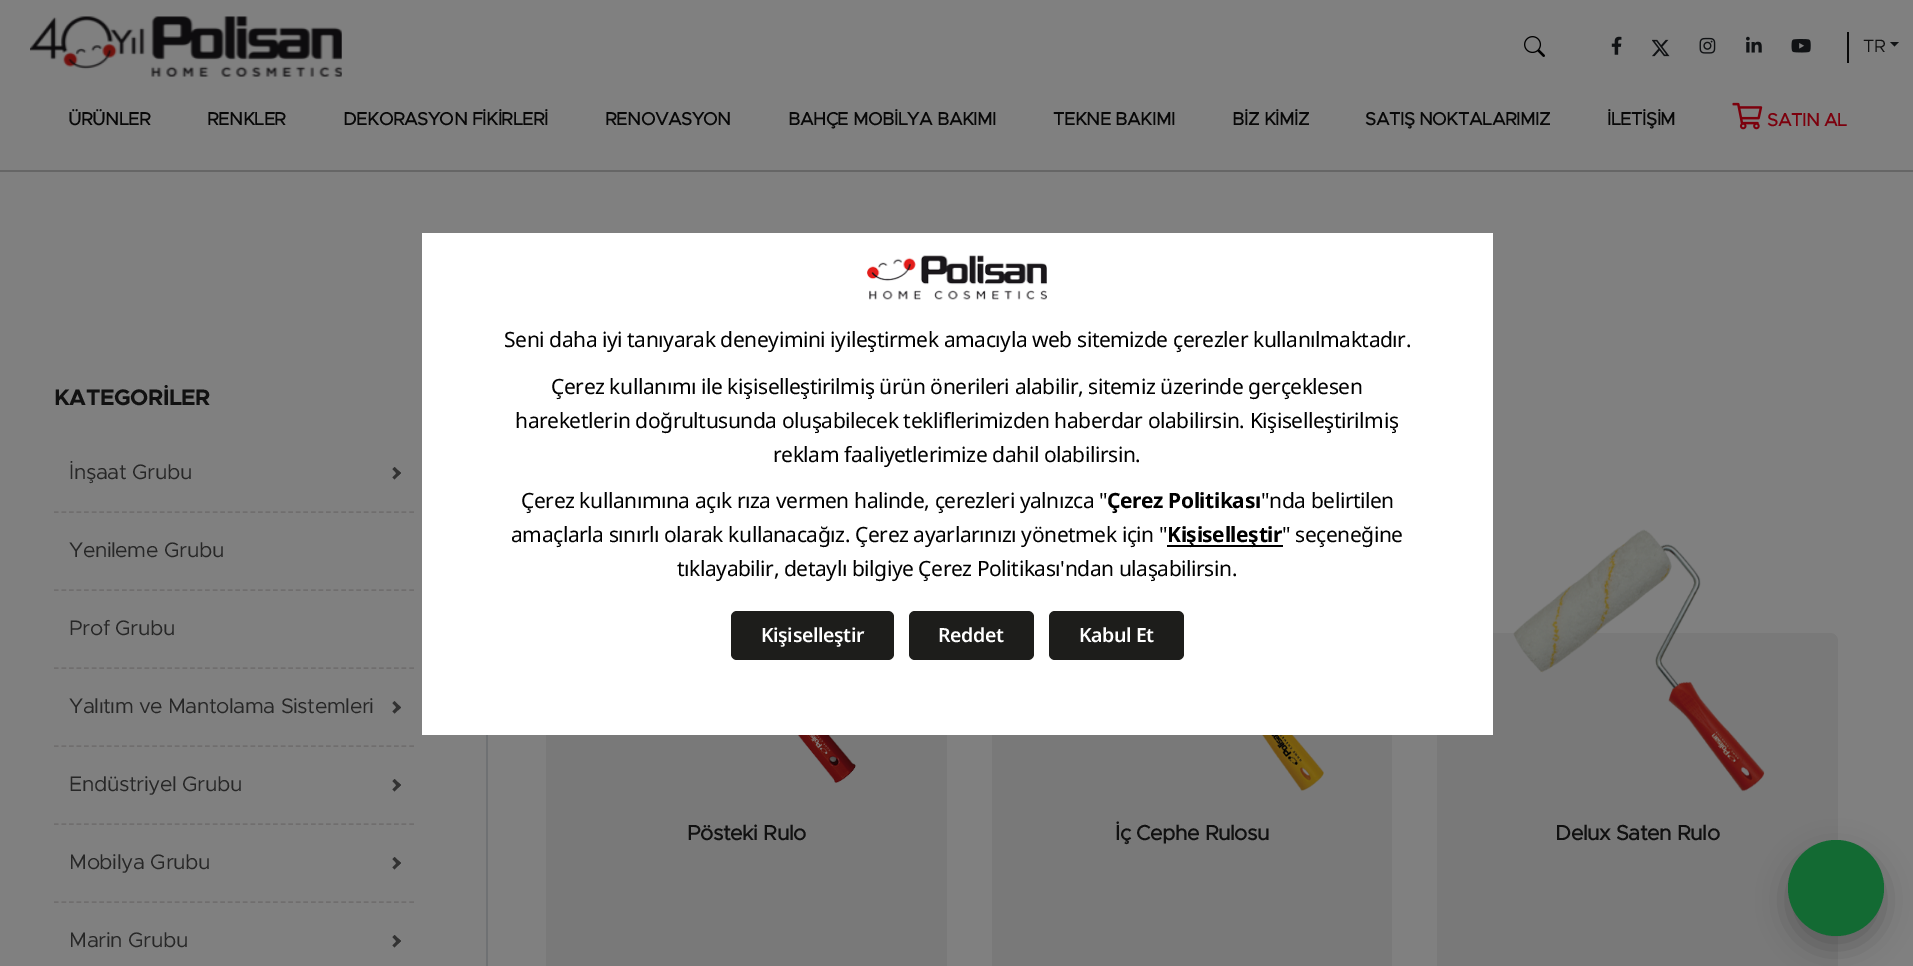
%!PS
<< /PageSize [1913 966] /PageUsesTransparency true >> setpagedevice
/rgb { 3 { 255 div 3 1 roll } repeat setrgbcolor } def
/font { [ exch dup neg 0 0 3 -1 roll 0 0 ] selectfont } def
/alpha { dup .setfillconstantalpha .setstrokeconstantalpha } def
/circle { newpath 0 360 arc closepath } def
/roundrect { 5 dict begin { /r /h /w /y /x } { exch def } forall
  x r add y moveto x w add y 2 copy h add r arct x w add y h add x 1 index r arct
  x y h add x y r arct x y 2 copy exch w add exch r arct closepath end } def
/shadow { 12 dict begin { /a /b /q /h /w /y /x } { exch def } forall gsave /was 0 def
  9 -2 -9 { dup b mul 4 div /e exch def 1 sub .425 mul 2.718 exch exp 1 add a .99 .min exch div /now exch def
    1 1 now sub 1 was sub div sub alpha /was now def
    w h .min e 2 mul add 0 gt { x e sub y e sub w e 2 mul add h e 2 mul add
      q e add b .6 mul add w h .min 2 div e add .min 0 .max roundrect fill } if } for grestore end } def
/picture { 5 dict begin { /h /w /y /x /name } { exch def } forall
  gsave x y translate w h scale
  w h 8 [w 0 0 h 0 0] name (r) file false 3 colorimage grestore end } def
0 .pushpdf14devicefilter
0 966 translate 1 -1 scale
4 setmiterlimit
128 128 128 rgb
0 0 1913 966 rectfill
102 102 102 rgb
0 170 1913 2 rectfill
(img_01.rgb) 30 16 312 61 picture
(img_02.rgb) 1524 36 21 21 picture
(img_03.rgb) 1611 36 11 19 picture
(img_04.rgb) 1652 39 18 18 picture
(img_05.rgb) 1699 37 17 17 picture
(img_06.rgb) 1746 36 16 17 picture
(img_07.rgb) 1791 39 20 14 picture
8 8 8 rgb
1847 32 2 31 rectfill
17 19 21 rgb
1890 42 moveto 9 0 rlineto -4.5 4.5 rlineto closepath fill
(img_08.rgb) 1732 102 31 28 picture
121 121 121 rgb
1437 633 401 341 8 roundrect fill
255 255 255 rgb
422 233 1071 502 rectfill
(img_09.rgb) 867 255 180 45 picture
0 0 0 rgb
1167 545 116 2 rectfill
29 29 27 rgb
731 611 163 49 6 roundrect fill
909 611 125 49 6 roundrect fill
1049 611 135 49 6 roundrect fill
111 113 115 rgb
486 735 2 231 rectfill
112 110 110 rgb
1.5 setlinewidth
[4.5 3.06] 0 setdash
54 512 moveto 360 0 rlineto stroke
50 50 50 rgb
392.5 469 moveto 2 -2 rlineto 6.5 6 rlineto -2.5 2.5 rlineto closepath fill
392.5 477.5 moveto 6 -6.5 rlineto 2.5 2 rlineto -6.5 6.5 rlineto closepath fill
112 110 110 rgb
54 590 moveto 360 0 rlineto stroke
54 668 moveto 360 0 rlineto stroke
54 746 moveto 360 0 rlineto stroke
50 50 50 rgb
392.5 703 moveto 2 -2 rlineto 6.5 6.5 rlineto -2.5 2 rlineto closepath fill
392.5 711.5 moveto 6 -6.5 rlineto 2.5 2.5 rlineto -6.5 6 rlineto closepath fill
112 110 110 rgb
54 824 moveto 360 0 rlineto stroke
50 50 50 rgb
392.5 781 moveto 2 -2 rlineto 6.5 6 rlineto -2.5 2.5 rlineto closepath fill
392.5 789.5 moveto 6 -6.5 rlineto 2.5 2 rlineto -6.5 6.5 rlineto closepath fill
112 110 110 rgb
54 902 moveto 360 0 rlineto stroke
50 50 50 rgb
392.5 859 moveto 2 -2 rlineto 6.5 6 rlineto -2.5 2.5 rlineto closepath fill
392.5 867.5 moveto 6 -6.5 rlineto 2.5 2 rlineto -6.5 6.5 rlineto closepath fill
392.5 937 moveto 2 -2 rlineto 6.5 6 rlineto -2.5 2.5 rlineto closepath fill
392.5 945.5 moveto 6 -6.5 rlineto 2.5 2 rlineto -6.5 6.5 rlineto closepath fill
121 121 121 rgb
546 735 401 231 rectfill
(img_10.rgb) 797 735 59 48 picture
992 735 400 231 rectfill
(img_11.rgb) 1262 735 62 56 picture
(img_12.rgb) 1513 529 252 263 picture
0 0 0 rgb
1788 852 96 96 48 15 0.25 shadow
19 106 51 rgb
1836 888 48 circle fill
/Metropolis-Regular 18 font
17 17 17 rgb
1863 52 moveto -0.42 0 (TR) ashow
/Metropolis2-Bold 18 font
8 8 8 rgb
68 125 moveto -0.42 0 (ÜRÜNLER) ashow
207 125 moveto -0.42 0 (RENKLER) ashow
343 125 moveto -0.42 0 (DEKORASYON FİKİRLERİ) ashow
605 125 moveto -0.42 0 (RENOVASYON) ashow
788 125 moveto -0.42 0 (BAHÇE MOBİLYA BAKIMI) ashow
1053 125 moveto -0.42 0 (TEKNE BAKIMI) ashow
1232 125 moveto -0.42 0 (BİZ KİMİZ) ashow
1365 125 moveto -0.42 0 (SATIŞ NOKTALARIMIZ) ashow
1607 125 moveto -0.42 0 (İLETİŞİM) ashow
124 0 13 rgb
1767 126 moveto -0.42 0 (SATIN AL) ashow
/NotoSans-Regular 21 font
0 0 0 rgb
504 347 moveto -0.42 0 (Seni daha iyi tanıyarak deneyimini iyileştirmek amacıyla web sitemizde çerezler kullanılmaktadır.) ashow
551 394 moveto -0.42 0 (Çerez kullanımı ile kişiselleştirilmiş ürün önerileri alabilir, sitemiz üzerinde gerçeklesen) ashow
515 428 moveto -0.42 0 (hareketlerin doğrultusunda oluşabilecek tekliflerimizden haberdar olabilirsin. Kişiselleştirilmiş) ashow
773 462 moveto -0.42 0 (reklam faaliyetlerimize dahil olabilirsin.) ashow
521 508 moveto -0.42 0 (Çerez kullanımına açık rıza vermen halinde, çerezleri yalnızca ") ashow
/NotoSans-Bold 21 font
1107 508 moveto -0.42 0 (Çerez Politikası) ashow
/NotoSans-Regular 21 font
1261 508 moveto -0.42 0 ("nda belirtilen) ashow
511 542 moveto -0.42 0 (amaçlarla sınırlı olarak kullanacağız. Çerez ayarlarınızı yönetmek için ") ashow
/NotoSans-Bold 21 font
1167 542 moveto -0.42 0 (Kişiselleştir) ashow
/NotoSans-Regular 21 font
1282 542 moveto -0.42 0 (" seçeneğine) ashow
677 576 moveto -0.42 0 (tıklayabilir, detaylı bilgiye Çerez Politikası'ndan ulaşabilirsin.) ashow
/NotoSans-SemiBold 19.5 font
255 255 255 rgb
761 642 moveto -0.42 0 (Kişiselleştir) ashow
938 642 moveto -0.42 0 (Reddet) ashow
1079 642 moveto -0.42 0 (Kabul Et) ashow
/Metropolis-Bold 22.5 font
17 17 17 rgb
54 405 moveto -0.42 0 (KATEGORİLER) ashow
/Metropolis-Regular 21 font
39 39 39 rgb
69 479 moveto -0.42 0 (İnşaat Grubu) ashow
69 557 moveto -0.42 0 (Yenileme Grubu) ashow
69 635 moveto -0.42 0 (Prof Grubu) ashow
69 713 moveto -0.42 0 (Yalıtım ve Mantolama Sistemleri) ashow
69 791 moveto -0.42 0 (Endüstriyel Grubu) ashow
69 869 moveto -0.42 0 (Mobilya Grubu) ashow
69 947 moveto -0.42 0 (Marin Grubu) ashow
/Metropolis2-Bold 21 font
17 17 17 rgb
687 840 moveto -0.42 0 (Pösteki Rulo) ashow
1115 840 moveto -0.42 0 (İç Cephe Rulosu) ashow
1555 840 moveto -0.42 0 (Delux Saten Rulo) ashow
.poppdf14devicefilter showpage
